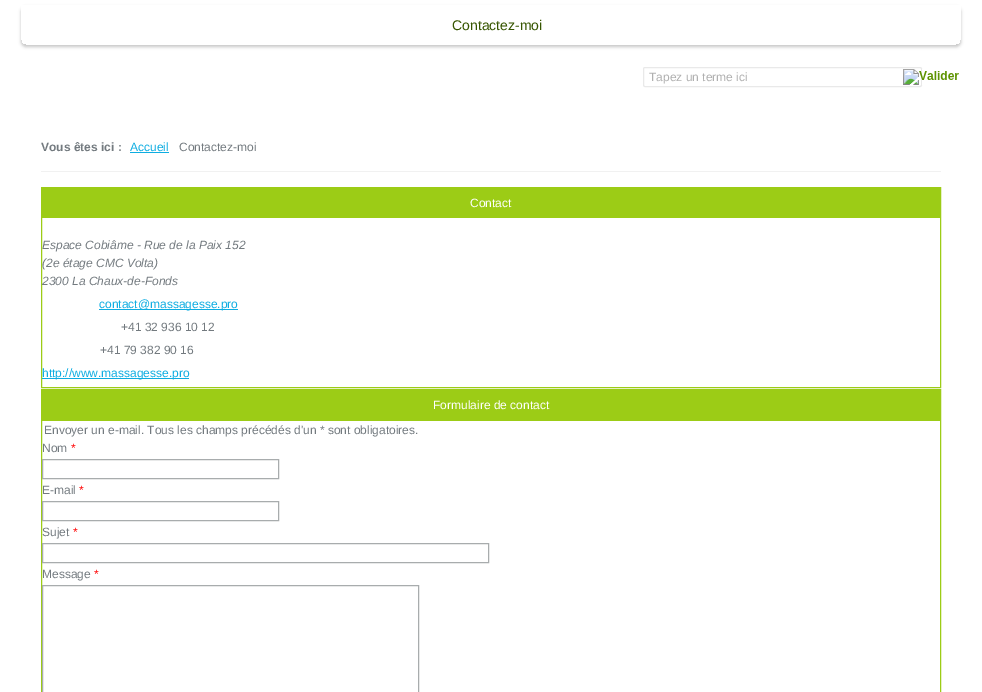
%!PS
<< /PageSize [982 692] /PageUsesTransparency true >> setpagedevice
/rgb { 3 { 255 div 3 1 roll } repeat setrgbcolor } def
/font { [ exch dup neg 0 0 3 -1 roll 0 0 ] selectfont } def
/text { moveto show } def
/alpha { dup .setfillconstantalpha .setstrokeconstantalpha } def
/roundrect { 5 dict begin { /r /h /w /y /x } { exch def } forall
  x r add y moveto x w add y 2 copy h add r arct x w add y h add x 1 index r arct
  x y h add x y r arct x y 2 copy exch w add exch r arct closepath end } def
/shadow { 12 dict begin { /a /b /q /h /w /y /x } { exch def } forall gsave /was 0 def
  9 -2 -9 { dup b mul 4 div /e exch def 1 sub .425 mul 2.718 exch exp 1 add a .99 .min exch div /now exch def
    1 1 now sub 1 was sub div sub alpha /was now def
    w h .min e 2 mul add 0 gt { x e sub y e sub w e 2 mul add h e 2 mul add
      q e add b .6 mul add w h .min 2 div e add .min 0 .max roundrect fill } if } for grestore end } def
/picture { 5 dict begin { /h /w /y /x /name } { exch def } forall
  gsave x y translate w h scale
  w h 8 [w 0 0 h 0 0] name (r) file false 3 colorimage grestore end } def
0 .pushpdf14devicefilter
0 692 translate 1 -1 scale
4 setmiterlimit
255 255 255 rgb
0 0 982 692 rectfill
gsave
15 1 moveto 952 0 rlineto 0 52 rlineto -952 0 rlineto closepath 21 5 moveto 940 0 rlineto 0 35 rlineto 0 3 -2 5 -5 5 rcurveto -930 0 rlineto -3 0 -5 -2 -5 -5 rcurveto closepath eoclip newpath
199 199 199 rgb
21 7 940 40 5 1.5 1 shadow
grestore
233 233 233 rgb
643.5 67.5 278 19 1.5 roundrect stroke
(img_01.rgb) 903 69 56 16 picture
241 241 241 rgb
41 171 900 1 rectfill
14 173 225 rgb
130 152 39 1 rectfill
156 204 22 rgb
41.5 187.5 899 200 rectstroke
42 188 898 30 rectfill
14 173 225 rgb
99 309 139 1 rectfill
42 378 147 1 rectfill
156 204 22 rgb
41.5 389.5 899 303 rectstroke
42 390 898 31 rectfill
168 172 173 rgb
42.5 459.5 236 19 rectstroke
42.5 501.5 236 19 rectstroke
42.5 543.5 446 19 rectstroke
42.5 585.5 376 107 rectstroke
/LiberationSans-Regular 14 font
54 85 0 rgb
(Contactez-moi) 452 30 text
/LiberationSans-Regular 12 font
176 176 176 rgb
(Tapez un terme ici) 649 81 text
/LiberationSans-Bold 12 font
115 122 127 rgb
(Vous êtes ici :) 41 151 text
/LiberationSans-Regular 12 font
14 173 225 rgb
(Accueil) 130 151 text
115 122 127 rgb
(Contactez-moi) 179 151 text
255 255 255 rgb
(Contact) 470 207 text
/LiberationSans-Italic 12 font
115 122 127 rgb
(Espace Cobiâme - Rue de la Paix 152) 42 249 text
(\(2e étage CMC Volta\)) 42 267 text
(2300 La Chaux-de-Fonds) 42 285 text
/LiberationSans-Regular 12 font
14 173 225 rgb
(contact@massagesse.pro) 99 308 text
115 122 127 rgb
(+41 32 936 10 12) 121 331 text
(+41 79 382 90 16) 100 354 text
14 173 225 rgb
(http://www.massagesse.pro) 42 377 text
255 255 255 rgb
(Formulaire de contact) 433 409 text
115 122 127 rgb
(Envoyer un e-mail. Tous les champs précédés d'un * sont obligatoires.) 44 434 text
(Nom) 42 452 text
255 0 0 rgb
(*) 71 452 text
115 122 127 rgb
(E-mail) 42 494 text
255 0 0 rgb
(*) 79 494 text
115 122 127 rgb
(Sujet) 42 536 text
255 0 0 rgb
(*) 73 536 text
115 122 127 rgb
(Message) 42 578 text
255 0 0 rgb
(*) 94 578 text
.poppdf14devicefilter showpage
